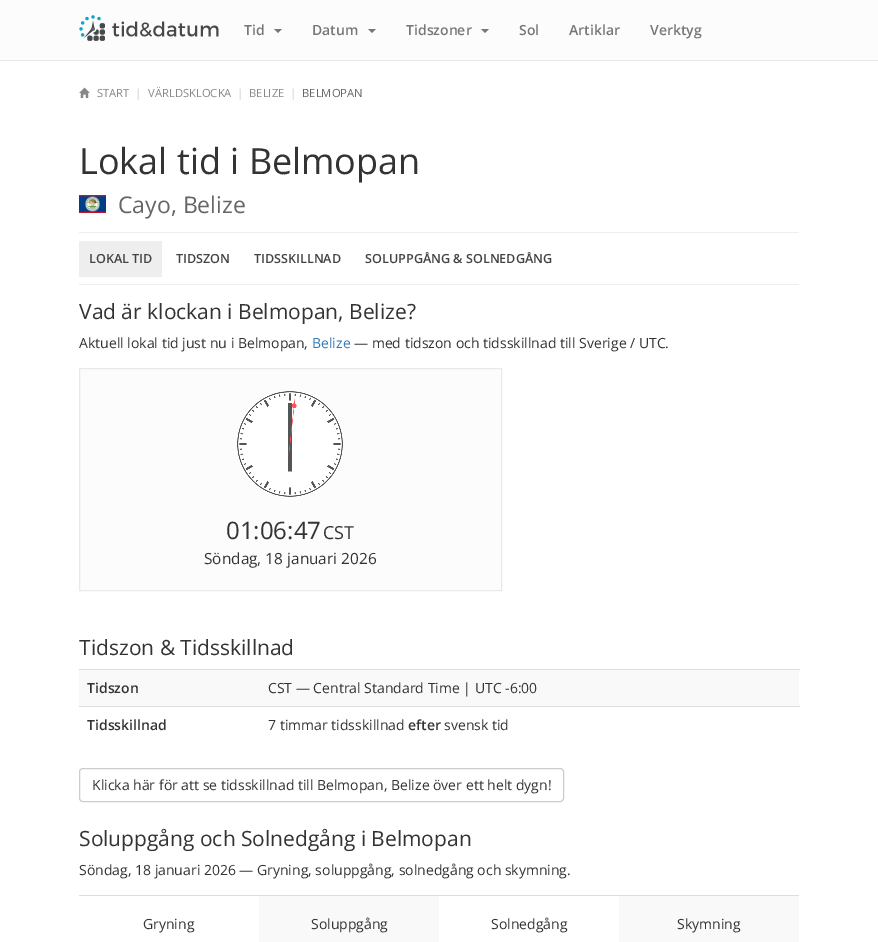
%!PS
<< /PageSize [878 942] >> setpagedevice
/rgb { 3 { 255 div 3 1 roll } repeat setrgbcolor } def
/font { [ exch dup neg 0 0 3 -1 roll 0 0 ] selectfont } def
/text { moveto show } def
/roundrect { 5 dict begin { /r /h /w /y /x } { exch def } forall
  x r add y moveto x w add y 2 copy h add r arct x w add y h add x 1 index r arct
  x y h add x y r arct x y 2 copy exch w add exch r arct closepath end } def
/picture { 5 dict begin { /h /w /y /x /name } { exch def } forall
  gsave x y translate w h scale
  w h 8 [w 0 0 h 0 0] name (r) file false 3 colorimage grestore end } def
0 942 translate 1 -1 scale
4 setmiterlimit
255 255 255 rgb
0 0 878 942 rectfill
252 252 252 rgb
0 0 878 60 rectfill
231 231 231 rgb
0 60 878 1 rectfill
(img_01.rgb) 79 15 140 26 picture
119 119 119 rgb
274 29 moveto 8 0 rlineto -4 4 rlineto closepath fill
368 29 moveto 8 0 rlineto -4 4 rlineto closepath fill
481 29 moveto 8 0 rlineto -4 4 rlineto closepath fill
(img_02.rgb) 79 87 11 11 picture
(img_03.rgb) 79 195 27 18 picture
238 238 238 rgb
79 232 720 1 rectfill
79 284 720 1 rectfill
79 241 83 36 rectfill
252 252 252 rgb
79.5 368.5 moveto 422 0 rlineto 0 222 rlineto -422 0 rlineto closepath gsave fill grestore
233 233 233 rgb
stroke
(img_04.rgb) 237 391 106 106 picture
249 249 249 rgb
79 670 720 36 rectfill
221 221 221 rgb
79 669 721 1 rectfill
79 706 721 1 rectfill
204 204 204 rgb
79.5 768.5 484 33 3.5 roundrect stroke
221 221 221 rgb
79 895 720 1 rectfill
249 249 249 rgb
259 896 180 46 rectfill
619 896 180 46 rectfill
/OpenSans-SemiBold 14 font
119 119 119 rgb
(Tid) 244 35 text
(Datum) 312 35 text
(Tidszoner) 406 35 text
(Sol) 519 35 text
(Artiklar) 569 35 text
(Verktyg) 650 35 text
/OpenSans-Regular 11.25 font
136 136 136 rgb
(START) 97 97 text
204 204 204 rgb
(|) 135 97 text
136 136 136 rgb
(VÄRLDSKLOCKA) 148 97 text
204 204 204 rgb
(|) 237 97 text
136 136 136 rgb
(BELIZE) 249 97 text
204 204 204 rgb
(|) 290 97 text
102 102 102 rgb
(BELMOPAN) 302 97 text
/OpenSans-Regular 36 font
51 51 51 rgb
(Lokal tid i Belmopan) 79 174 text
/OpenSans-Regular 23 font
102 102 102 rgb
(Cayo, Belize) 118 213 text
/OpenSans-SemiBold 12.6 font
68 68 68 rgb
(LOKAL TID) 89 263 text
(TIDSZON) 176 263 text
(TIDSSKILLNAD) 254 263 text
(SOLUPPGÅNG & SOLNEDGÅNG) 365 263 text
/OpenSans-Regular 21 font
51 51 51 rgb
(Vad är klockan i Belmopan, Belize?) 79 319 text
/OpenSans-Regular 14 font
(Aktuell lokal tid just nu i Belmopan,) 79 348 text
51 122 183 rgb
(Belize) 312 348 text
51 51 51 rgb
(— med tidszon och tidsskillnad till Sverige / UTC.) 354 348 text
/OpenSans-Regular 24 font
(01:06:47) 226 539 text
/OpenSans-Regular 18 font
(CST) 323 539 text
/OpenSans-Regular 15.4 font
(Söndag, 18 januari 2026) 204 564 text
/OpenSans-Regular 21 font
(Tidszon & Tidsskillnad) 79 655 text
/OpenSans-SemiBold 14 font
(Tidszon) 87 693 text
/OpenSans-Regular 14 font
(CST — Central Standard Time | UTC -6:00) 268 693 text
/OpenSans-SemiBold 14 font
(Tidsskillnad) 87 730 text
/OpenSans-Regular 14 font
(7 timmar tidsskillnad) 268 730 text
/OpenSans-SemiBold 14 font
(efter) 408 730 text
/OpenSans-Regular 14 font
(svensk tid) 444 730 text
(Klicka här för att se tidsskillnad till Belmopan, Belize över ett helt dygn!) 92 790 text
/OpenSans-Regular 21 font
(Soluppgång och Solnedgång i Belmopan) 79 846 text
/OpenSans-Regular 14 font
(Söndag, 18 januari 2026 — Gryning, soluppgång, solnedgång och skymning.) 79 875 text
(Gryning) 143 929 text
(Soluppgång) 311 929 text
(Solnedgång) 491 929 text
(Skymning) 677 929 text
showpage
